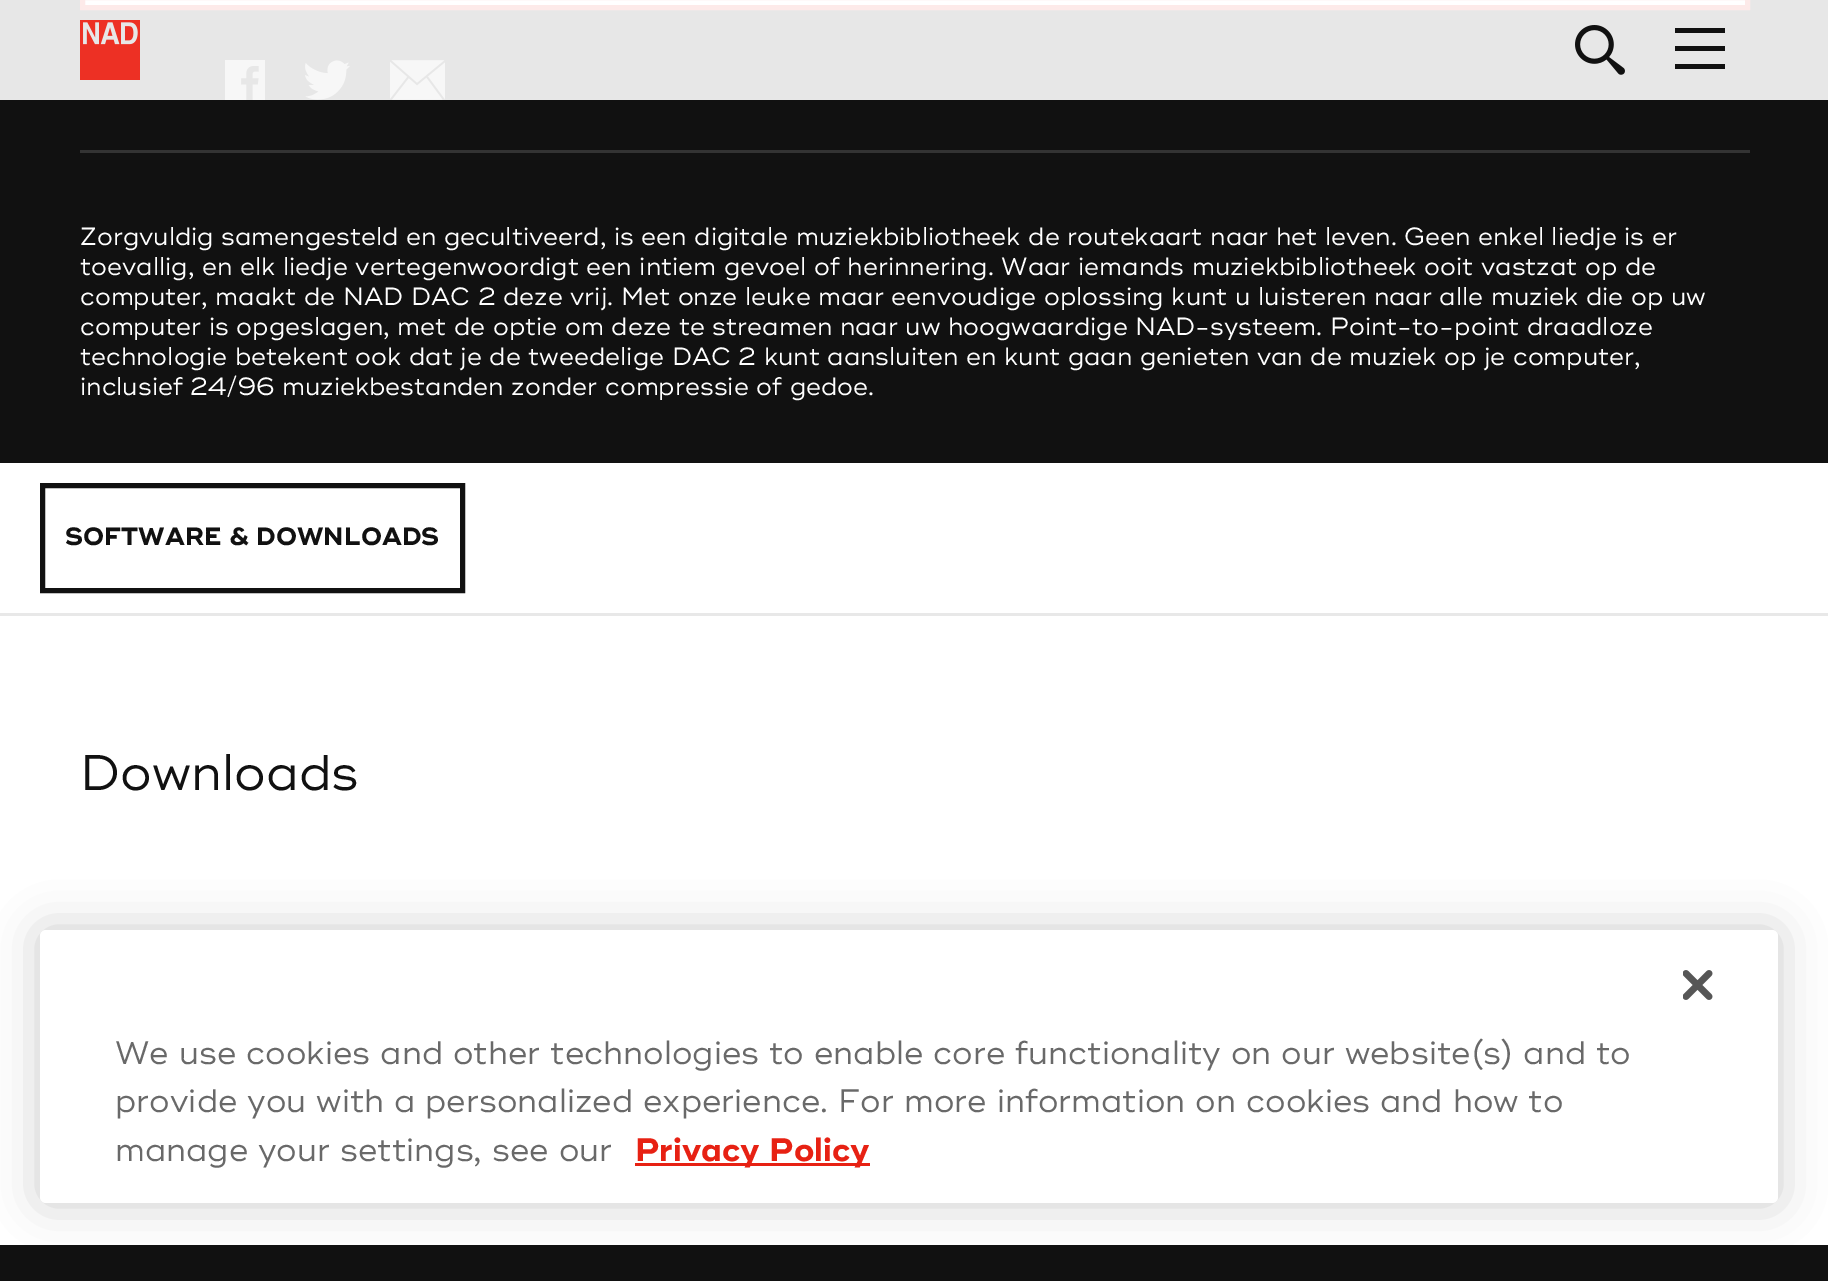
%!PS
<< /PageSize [1828 1281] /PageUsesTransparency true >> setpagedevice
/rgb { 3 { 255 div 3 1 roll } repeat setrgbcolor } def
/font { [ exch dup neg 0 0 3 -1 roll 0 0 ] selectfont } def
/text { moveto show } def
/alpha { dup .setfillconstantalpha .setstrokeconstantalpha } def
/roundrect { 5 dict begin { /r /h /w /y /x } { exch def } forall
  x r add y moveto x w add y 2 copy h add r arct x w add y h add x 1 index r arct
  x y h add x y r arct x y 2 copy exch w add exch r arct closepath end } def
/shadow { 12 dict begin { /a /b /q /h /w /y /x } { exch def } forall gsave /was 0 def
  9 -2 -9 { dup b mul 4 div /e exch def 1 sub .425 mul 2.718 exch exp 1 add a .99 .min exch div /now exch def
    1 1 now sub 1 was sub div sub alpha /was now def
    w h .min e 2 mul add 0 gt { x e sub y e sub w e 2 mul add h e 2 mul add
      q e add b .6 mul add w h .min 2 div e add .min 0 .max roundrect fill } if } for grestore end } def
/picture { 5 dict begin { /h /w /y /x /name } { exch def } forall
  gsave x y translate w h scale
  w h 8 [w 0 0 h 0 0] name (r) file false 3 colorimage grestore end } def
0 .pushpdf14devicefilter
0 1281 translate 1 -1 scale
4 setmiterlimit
255 255 255 rgb
0 0 1828 1281 rectfill
231 231 231 rgb
0 0 1828 100 rectfill
(img_01.rgb) 80 20 60 60 picture
(img_02.rgb) 1575 25 50 50 picture
17 17 17 rgb
1675 28 50 5 rectfill
1675 46 50 5 rectfill
1675 64 50 5 rectfill
0 100 1828 363 rectfill
255 255 255 rgb
82.5 -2.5 moveto 1665 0 rlineto 0 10 rlineto -1665 0 rlineto closepath gsave fill grestore
253 234 233 rgb
5 setlinewidth
stroke
(img_03.rgb) 225 60 40 40 picture
(img_04.rgb) 305 60 45 40 picture
(img_05.rgb) 390 60 55 40 picture
51 51 51 rgb
80 150 1670 3 rectfill
232 232 232 rgb
0 613 1828 3 rectfill
17 17 17 rgb
42.5 485.5 420 105 rectstroke
0 1245 1828 36 rectfill
0 0 0 rgb
40 930 1738 273 6 22.5 0.2 shadow
255 255 255 rgb
40 930 1738 273 6 roundrect fill
(img_06.rgb) 1683 970 30 30 picture
231 33 19 rgb
635 1163 235 3 rectfill
/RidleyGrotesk-Regular 25 font
255 255 255 rgb
(Zorgvuldig samengesteld en gecultiveerd, is een digitale muziekbibliotheek de routekaart naar het leven. Geen enkel liedje is er) 80 245 text
(toevallig, en elk liedje vertegenwoordigt een intiem gevoel of herinnering. Waar iemands muziekbibliotheek ooit vastzat op de) 80 275 text
(computer, maakt de NAD DAC 2 deze vrij. Met onze leuke maar eenvoudige oplossing kunt u luisteren naar alle muziek die op uw) 80 305 text
(computer is opgeslagen, met de optie om deze te streamen naar uw hoogwaardige NAD-systeem. Point-to-point draadloze) 80 335 text
(technologie betekent ook dat je de tweedelige DAC 2 kunt aansluiten en kunt gaan genieten van de muziek op je computer,) 80 365 text
(inclusief 24/96 muziekbestanden zonder compressie of gedoe.) 80 395 text
/RidleyGrotesk-Bold 25 font
17 17 17 rgb
(SOFTWARE & DOWNLOADS) 65 545 text
/RidleyGrotesk-Regular 50 font
(Downloads) 80 790 text
/RidleyGrotesk-Regular 32.5 font
105 105 105 rgb
(We use cookies and other technologies to enable core functionality on our website\(s\) and to) 115 1064 text
(provide you with a personalized experience. For more information on cookies and how to) 115 1112 text
(manage your settings, see our) 115 1161 text
/RidleyGrotesk-Bold 32.5 font
231 33 19 rgb
(Privacy Policy) 635 1161 text
.poppdf14devicefilter showpage
